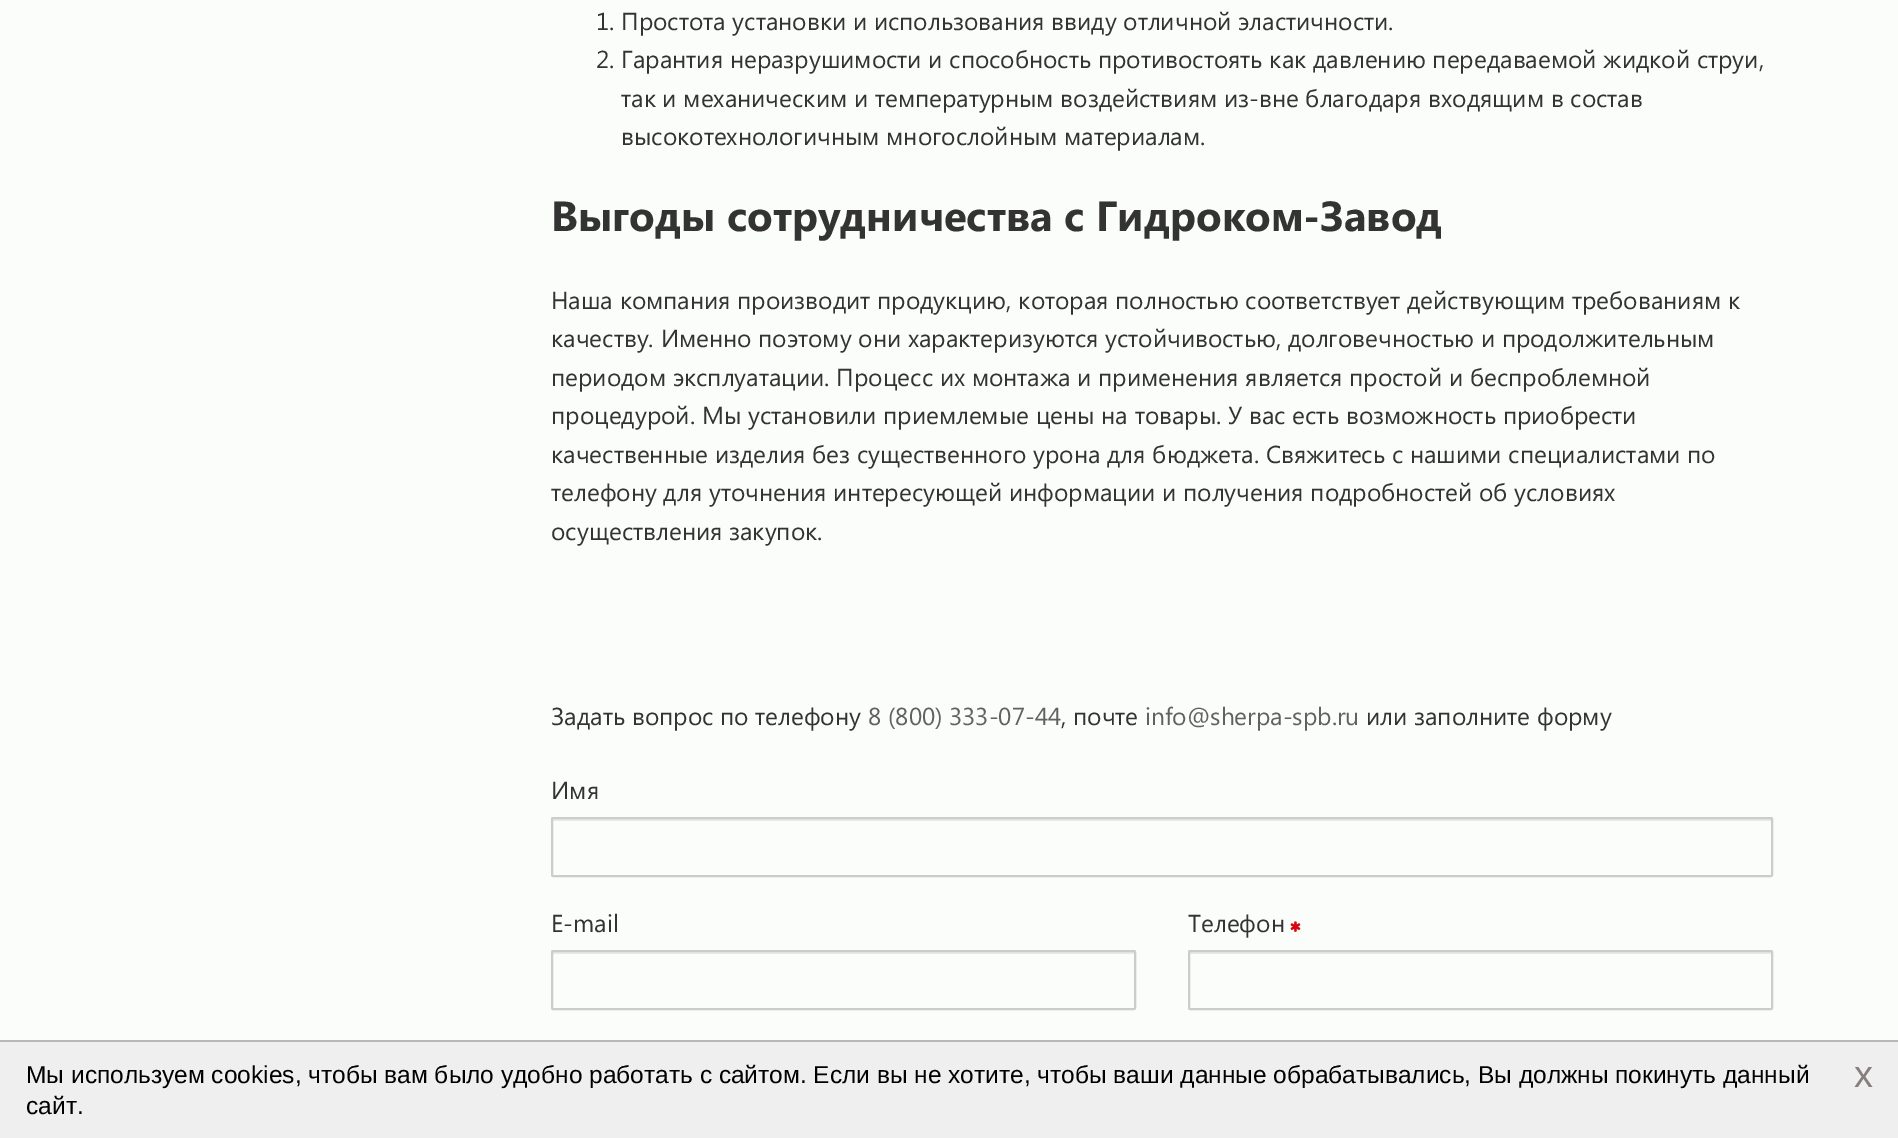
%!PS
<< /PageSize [1898 1138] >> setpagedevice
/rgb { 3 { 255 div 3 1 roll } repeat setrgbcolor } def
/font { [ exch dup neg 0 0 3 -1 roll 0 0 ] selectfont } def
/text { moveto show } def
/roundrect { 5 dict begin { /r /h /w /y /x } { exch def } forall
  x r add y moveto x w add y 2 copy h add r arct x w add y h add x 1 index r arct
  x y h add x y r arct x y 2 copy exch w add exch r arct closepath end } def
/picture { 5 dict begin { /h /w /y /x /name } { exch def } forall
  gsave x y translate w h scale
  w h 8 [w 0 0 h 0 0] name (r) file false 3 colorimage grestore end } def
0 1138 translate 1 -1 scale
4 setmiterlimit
251 253 250 rgb
0 0 1898 1138 rectfill
233 233 233 rgb
553 819 1218 2 rectfill
204 204 204 rgb
2 setlinewidth
552 818 1220 58 1 roundrect stroke
233 233 233 rgb
553 952 581 2 rectfill
204 204 204 rgb
552 951 583 58 1 roundrect stroke
(img_01.rgb) 1290 921 11 11 picture
233 233 233 rgb
1190 952 581 2 rectfill
204 204 204 rgb
1189 951 583 58 1 roundrect stroke
239 239 239 rgb
0 1042 1898 96 rectfill
185 185 185 rgb
0 1040 1898 2 rectfill
/SegoeUI-Regular 24.5 font
51 51 51 rgb
(1. Простота установки и использования ввиду отличной эластичности.) 596 30 text
(2. Гарантия неразрушимости и способность противостоять как давлению передаваемой жидкой струи,) 596 68 text
(так и механическим и температурным воздействиям из-вне благодаря входящим в состав) 621 107 text
(высокотехнологичным многослойным материалам.) 621 145 text
/SegoeUI-Bold 42 font
(Выгоды сотрудничества с Гидроком-Завод) 551 231 text
/SegoeUI-Regular 24.5 font
(Наша компания производит продукцию, которая полностью соответствует действующим требованиям к) 551 309 text
(качеству. Именно поэтому они характеризуются устойчивостью, долговечностью и продолжительным) 551 347 text
(периодом эксплуатации. Процесс их монтажа и применения является простой и беспроблемной) 551 386 text
(процедурой. Мы установили приемлемые цены на товары. У вас есть возможность приобрести) 551 424 text
(качественные изделия без существенного урона для бюджета. Свяжитесь с нашими специалистами по) 551 463 text
(телефону для уточнения интересующей информации и получения подробностей об условиях) 551 501 text
(осуществления закупок.) 551 540 text
(Задать вопрос по телефону) 551 725 text
97 97 97 rgb
(8 \(800\) 333-07-44) 868 725 text
51 51 51 rgb
(, почте) 1061 725 text
97 97 97 rgb
(info@sherpa-spb.ru) 1145 725 text
51 51 51 rgb
(или заполните форму) 1366 725 text
(Имя) 551 799 text
(E-mail) 551 932 text
(Телефон) 1188 932 text
/LiberationSans-Regular 24.5 font
0 0 0 rgb
(Мы используем cookies, чтобы вам было удобно работать с сайтом. Если вы не хотите, чтобы ваши данные обрабатывались, Вы должны покинуть данный) 26 1083 text
(сайт.) 26 1114 text
/LiberationSans-Regular 38 font
134 127 127 rgb
(x) 1854 1087 text
showpage
